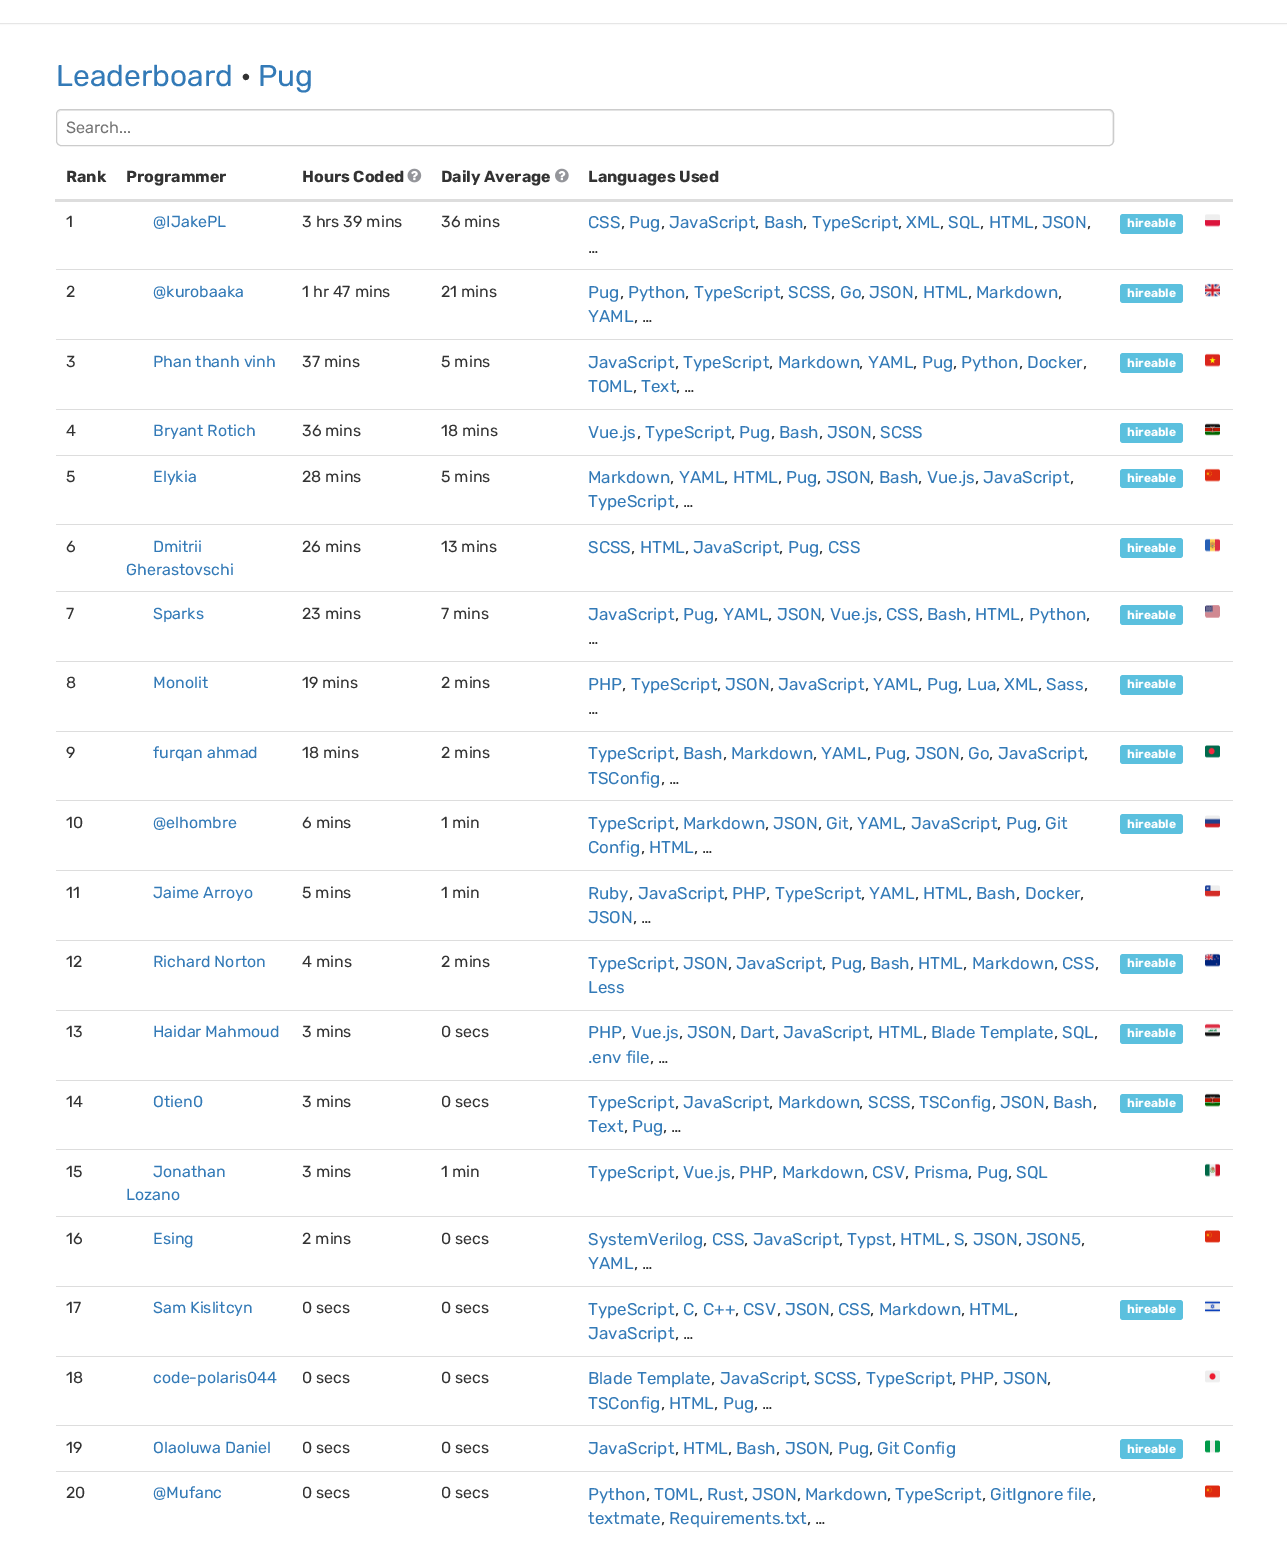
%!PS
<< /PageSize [1287 1564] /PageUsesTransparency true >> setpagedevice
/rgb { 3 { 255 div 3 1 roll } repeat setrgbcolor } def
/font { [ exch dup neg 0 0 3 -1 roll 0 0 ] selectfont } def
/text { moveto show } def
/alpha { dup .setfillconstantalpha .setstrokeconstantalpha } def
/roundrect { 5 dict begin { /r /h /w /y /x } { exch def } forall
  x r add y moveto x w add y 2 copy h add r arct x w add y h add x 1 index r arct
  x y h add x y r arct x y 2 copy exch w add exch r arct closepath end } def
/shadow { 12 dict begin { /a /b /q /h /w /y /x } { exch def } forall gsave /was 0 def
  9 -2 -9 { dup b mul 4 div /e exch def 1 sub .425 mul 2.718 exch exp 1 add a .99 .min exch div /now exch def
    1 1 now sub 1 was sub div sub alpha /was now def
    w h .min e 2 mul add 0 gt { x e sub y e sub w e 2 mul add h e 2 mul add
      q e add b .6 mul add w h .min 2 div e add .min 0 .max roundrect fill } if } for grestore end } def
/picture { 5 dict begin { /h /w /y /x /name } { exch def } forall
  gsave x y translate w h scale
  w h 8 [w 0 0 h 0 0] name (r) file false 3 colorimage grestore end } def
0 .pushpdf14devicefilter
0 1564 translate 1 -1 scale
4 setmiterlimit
255 255 255 rgb
0 0 1287 1564 rectfill
0 0 0 rgb
0 -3 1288 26 0 1 0.3 shadow
255 255 255 rgb
0 0 1287 23 rectfill
236 236 236 rgb
61 111 moveto 1048 0 rlineto 2 0 3 2 3 4 rcurveto 0 29 rlineto 1 -2 rlineto 0 -30 rlineto -1 -1 -2 -2 -4 -2 rcurveto -1047 0 rlineto -3 0 -4 2 -4 5 rcurveto 0 -2 1 -4 3 -4 rcurveto closepath fill
204 204 204 rgb
56.5 109.5 1057 36 4.5 roundrect stroke
(img_01.rgb) 407 168 15 15 picture
(img_02.rgb) 555 168 14 15 picture
221 221 221 rgb
55 199 1178 3 rectfill
91 192 222 rgb
1120 214 63 20 3 roundrect fill
(img_03.rgb) 1205 214 15 13 picture
221 221 221 rgb
56 269 1177 1 rectfill
(img_04.rgb) 1205 283 15 14 picture
91 192 222 rgb
1120 284 63 19 3 roundrect fill
221 221 221 rgb
56 339 1177 1 rectfill
(img_05.rgb) 1205 353 15 14 picture
91 192 222 rgb
1120 353 63 20 3 roundrect fill
221 221 221 rgb
56 409 1177 1 rectfill
(img_06.rgb) 1205 423 15 13 picture
91 192 222 rgb
1120 423 63 20 3 roundrect fill
221 221 221 rgb
56 455 1177 1 rectfill
(img_07.rgb) 1205 468 15 14 picture
91 192 222 rgb
1120 469 63 19 3 roundrect fill
221 221 221 rgb
56 524 1177 1 rectfill
(img_08.rgb) 1205 538 15 14 picture
91 192 222 rgb
1120 538 63 20 3 roundrect fill
221 221 221 rgb
56 591 1177 1 rectfill
(img_09.rgb) 1205 605 15 13 picture
91 192 222 rgb
1120 605 63 20 3 roundrect fill
221 221 221 rgb
56 661 1177 1 rectfill
91 192 222 rgb
1120 675 63 20 3 roundrect fill
221 221 221 rgb
56 731 1177 1 rectfill
(img_10.rgb) 1205 745 15 13 picture
91 192 222 rgb
1120 745 63 19 3 roundrect fill
221 221 221 rgb
56 800 1177 1 rectfill
(img_11.rgb) 1205 815 15 13 picture
91 192 222 rgb
1120 814 63 20 3 roundrect fill
221 221 221 rgb
56 870 1177 1 rectfill
(img_12.rgb) 1205 885 15 12 picture
56 940 1177 1 rectfill
(img_13.rgb) 1205 953 15 14 picture
91 192 222 rgb
1120 954 63 20 3 roundrect fill
221 221 221 rgb
56 1010 1177 1 rectfill
(img_14.rgb) 1205 1023 15 14 picture
91 192 222 rgb
1120 1024 63 20 3 roundrect fill
221 221 221 rgb
56 1080 1177 1 rectfill
(img_15.rgb) 1205 1093 15 14 picture
91 192 222 rgb
1120 1094 63 19 3 roundrect fill
221 221 221 rgb
56 1149 1177 1 rectfill
(img_16.rgb) 1205 1163 15 14 picture
56 1216 1177 1 rectfill
(img_17.rgb) 1205 1230 15 13 picture
56 1286 1177 1 rectfill
(img_18.rgb) 1205 1300 15 13 picture
91 192 222 rgb
1120 1300 63 20 3 roundrect fill
221 221 221 rgb
56 1356 1177 1 rectfill
(img_19.rgb) 1205 1370 15 13 picture
56 1425 1177 1 rectfill
(img_20.rgb) 1205 1440 15 13 picture
91 192 222 rgb
1120 1439 63 20 3 roundrect fill
221 221 221 rgb
56 1471 1177 1 rectfill
(img_17.rgb) 1205 1485 15 13 picture
/Rubik-Regular 30 font
51 122 183 rgb
(Leaderboard) 56 86 text
51 51 51 rgb
(·) 241 86 text
51 122 183 rgb
(Pug) 258 86 text
/Rubik-Regular 16.25 font
117 117 117 rgb
(Search...) 66 133 text
/Rubik-Bold 16 font
51 51 51 rgb
(Rank) 66 182 text
(Programmer) 126 182 text
(Hours Coded) 302 182 text
(Daily Average) 441 182 text
(Languages Used) 588 182 text
/Rubik-Regular 16 font
(1) 66 227 text
51 122 183 rgb
(@IJakePL) 153 227 text
51 51 51 rgb
(3 hrs 39 mins) 302 227 text
(36 mins) 441 227 text
/Rubik-Regular 17 font
51 122 183 rgb
(CSS) 588 228 text
51 51 51 rgb
(,) 621 228 text
51 122 183 rgb
(Pug) 629 228 text
51 51 51 rgb
(,) 661 228 text
51 122 183 rgb
(JavaScript) 669 228 text
51 51 51 rgb
(,) 755 228 text
51 122 183 rgb
(Bash) 764 228 text
51 51 51 rgb
(,) 803 228 text
51 122 183 rgb
(TypeScript) 812 228 text
51 51 51 rgb
(,) 898 228 text
51 122 183 rgb
(XML) 906 228 text
51 51 51 rgb
(,) 940 228 text
51 122 183 rgb
(SQL) 948 228 text
51 51 51 rgb
(,) 980 228 text
51 122 183 rgb
(HTML) 989 228 text
51 51 51 rgb
(,) 1034 228 text
51 122 183 rgb
(JSON) 1042 228 text
51 51 51 rgb
(,) 1087 228 text
(…) 588 253 text
/Rubik-Bold 12 font
255 255 255 rgb
(hireable) 1127 227 text
/Rubik-Regular 16 font
51 51 51 rgb
(2) 66 297 text
51 122 183 rgb
(@kurobaaka) 153 297 text
51 51 51 rgb
(1 hr 47 mins) 302 297 text
(21 mins) 441 297 text
/Rubik-Regular 17 font
51 122 183 rgb
(Pug) 588 298 text
51 51 51 rgb
(,) 620 298 text
51 122 183 rgb
(Python) 628 298 text
51 51 51 rgb
(,) 685 298 text
51 122 183 rgb
(TypeScript) 694 298 text
51 51 51 rgb
(,) 780 298 text
51 122 183 rgb
(SCSS) 788 298 text
51 51 51 rgb
(,) 831 298 text
51 122 183 rgb
(Go) 840 298 text
51 51 51 rgb
(,) 861 298 text
51 122 183 rgb
(JSON) 869 298 text
51 51 51 rgb
(,) 914 298 text
51 122 183 rgb
(HTML) 923 298 text
51 51 51 rgb
(,) 968 298 text
51 122 183 rgb
(Markdown) 976 298 text
51 51 51 rgb
(,) 1058 298 text
51 122 183 rgb
(YAML) 588 322 text
51 51 51 rgb
(, …) 634 322 text
/Rubik-Bold 12 font
255 255 255 rgb
(hireable) 1127 297 text
/Rubik-Regular 16 font
51 51 51 rgb
(3) 66 367 text
51 122 183 rgb
(Phan thanh vinh) 153 367 text
51 51 51 rgb
(37 mins) 302 367 text
(5 mins) 441 367 text
/Rubik-Regular 17 font
51 122 183 rgb
(JavaScript) 588 368 text
51 51 51 rgb
(,) 675 368 text
51 122 183 rgb
(TypeScript) 683 368 text
51 51 51 rgb
(,) 769 368 text
51 122 183 rgb
(Markdown) 778 368 text
51 51 51 rgb
(,) 859 368 text
51 122 183 rgb
(YAML) 868 368 text
51 51 51 rgb
(,) 913 368 text
51 122 183 rgb
(Pug) 922 368 text
51 51 51 rgb
(,) 953 368 text
51 122 183 rgb
(Python) 961 368 text
51 51 51 rgb
(,) 1019 368 text
51 122 183 rgb
(Docker) 1027 368 text
51 51 51 rgb
(,) 1083 368 text
51 122 183 rgb
(TOML) 588 392 text
51 51 51 rgb
(,) 633 392 text
51 122 183 rgb
(Text) 641 392 text
51 51 51 rgb
(, …) 676 392 text
/Rubik-Bold 12 font
255 255 255 rgb
(hireable) 1127 367 text
/Rubik-Regular 16 font
51 51 51 rgb
(4) 66 436 text
51 122 183 rgb
(Bryant Rotich) 153 436 text
51 51 51 rgb
(36 mins) 302 436 text
(18 mins) 441 436 text
/Rubik-Regular 17 font
51 122 183 rgb
(Vue.js) 588 438 text
51 51 51 rgb
(,) 637 438 text
51 122 183 rgb
(TypeScript) 645 438 text
51 51 51 rgb
(,) 731 438 text
51 122 183 rgb
(Pug) 739 438 text
51 51 51 rgb
(,) 771 438 text
51 122 183 rgb
(Bash) 779 438 text
51 51 51 rgb
(,) 819 438 text
51 122 183 rgb
(JSON) 827 438 text
51 51 51 rgb
(,) 872 438 text
51 122 183 rgb
(SCSS) 880 438 text
/Rubik-Bold 12 font
255 255 255 rgb
(hireable) 1127 436 text
/Rubik-Regular 16 font
51 51 51 rgb
(5) 66 482 text
51 122 183 rgb
(Elykia) 153 482 text
51 51 51 rgb
(28 mins) 302 482 text
(5 mins) 441 482 text
/Rubik-Regular 17 font
51 122 183 rgb
(Markdown) 588 483 text
51 51 51 rgb
(,) 670 483 text
51 122 183 rgb
(YAML) 679 483 text
51 51 51 rgb
(,) 724 483 text
51 122 183 rgb
(HTML) 733 483 text
51 51 51 rgb
(,) 778 483 text
51 122 183 rgb
(Pug) 786 483 text
51 51 51 rgb
(,) 817 483 text
51 122 183 rgb
(JSON) 826 483 text
51 51 51 rgb
(,) 870 483 text
51 122 183 rgb
(Bash) 879 483 text
51 51 51 rgb
(,) 918 483 text
51 122 183 rgb
(Vue.js) 927 483 text
51 51 51 rgb
(,) 975 483 text
51 122 183 rgb
(JavaScript) 983 483 text
51 51 51 rgb
(,) 1070 483 text
51 122 183 rgb
(TypeScript) 588 507 text
51 51 51 rgb
(, …) 675 507 text
/Rubik-Bold 12 font
255 255 255 rgb
(hireable) 1127 482 text
/Rubik-Regular 16 font
51 51 51 rgb
(6) 66 552 text
51 122 183 rgb
(Dmitrii) 153 552 text
(Gherastovschi) 126 575 text
51 51 51 rgb
(26 mins) 302 552 text
(13 mins) 441 552 text
/Rubik-Regular 17 font
51 122 183 rgb
(SCSS) 588 553 text
51 51 51 rgb
(,) 631 553 text
51 122 183 rgb
(HTML) 640 553 text
51 51 51 rgb
(,) 685 553 text
51 122 183 rgb
(JavaScript) 693 553 text
51 51 51 rgb
(,) 779 553 text
51 122 183 rgb
(Pug) 788 553 text
51 51 51 rgb
(,) 819 553 text
51 122 183 rgb
(CSS) 828 553 text
/Rubik-Bold 12 font
255 255 255 rgb
(hireable) 1127 552 text
/Rubik-Regular 16 font
51 51 51 rgb
(7) 66 619 text
51 122 183 rgb
(Sparks) 153 619 text
51 51 51 rgb
(23 mins) 302 619 text
(7 mins) 441 619 text
/Rubik-Regular 17 font
51 122 183 rgb
(JavaScript) 588 620 text
51 51 51 rgb
(,) 675 620 text
51 122 183 rgb
(Pug) 683 620 text
51 51 51 rgb
(,) 714 620 text
51 122 183 rgb
(YAML) 723 620 text
51 51 51 rgb
(,) 768 620 text
51 122 183 rgb
(JSON) 777 620 text
51 51 51 rgb
(,) 821 620 text
51 122 183 rgb
(Vue.js) 830 620 text
51 51 51 rgb
(,) 878 620 text
51 122 183 rgb
(CSS) 886 620 text
51 51 51 rgb
(,) 919 620 text
51 122 183 rgb
(Bash) 927 620 text
51 51 51 rgb
(,) 967 620 text
51 122 183 rgb
(HTML) 975 620 text
51 51 51 rgb
(,) 1020 620 text
51 122 183 rgb
(Python) 1029 620 text
51 51 51 rgb
(,) 1086 620 text
(…) 588 644 text
/Rubik-Bold 12 font
255 255 255 rgb
(hireable) 1127 619 text
/Rubik-Regular 16 font
51 51 51 rgb
(8) 66 688 text
51 122 183 rgb
(Monolit) 153 688 text
51 51 51 rgb
(19 mins) 302 688 text
(2 mins) 441 688 text
/Rubik-Regular 17 font
51 122 183 rgb
(PHP) 588 690 text
51 51 51 rgb
(,) 622 690 text
51 122 183 rgb
(TypeScript) 631 690 text
51 51 51 rgb
(,) 717 690 text
51 122 183 rgb
(JSON) 725 690 text
51 51 51 rgb
(,) 770 690 text
51 122 183 rgb
(JavaScript) 778 690 text
51 51 51 rgb
(,) 865 690 text
51 122 183 rgb
(YAML) 873 690 text
51 51 51 rgb
(,) 918 690 text
51 122 183 rgb
(Pug) 927 690 text
51 51 51 rgb
(,) 958 690 text
51 122 183 rgb
(Lua) 967 690 text
51 51 51 rgb
(,) 996 690 text
51 122 183 rgb
(XML) 1004 690 text
51 51 51 rgb
(,) 1038 690 text
51 122 183 rgb
(Sass) 1046 690 text
51 51 51 rgb
(,) 1084 690 text
(…) 588 714 text
/Rubik-Bold 12 font
255 255 255 rgb
(hireable) 1127 688 text
/Rubik-Regular 16 font
51 51 51 rgb
(9) 66 758 text
51 122 183 rgb
(furqan ahmad) 153 758 text
51 51 51 rgb
(18 mins) 302 758 text
(2 mins) 441 758 text
/Rubik-Regular 17 font
51 122 183 rgb
(TypeScript) 588 759 text
51 51 51 rgb
(,) 675 759 text
51 122 183 rgb
(Bash) 683 759 text
51 51 51 rgb
(,) 723 759 text
51 122 183 rgb
(Markdown) 731 759 text
51 51 51 rgb
(,) 813 759 text
51 122 183 rgb
(YAML) 821 759 text
51 51 51 rgb
(,) 867 759 text
51 122 183 rgb
(Pug) 875 759 text
51 51 51 rgb
(,) 906 759 text
51 122 183 rgb
(JSON) 915 759 text
51 51 51 rgb
(,) 960 759 text
51 122 183 rgb
(Go) 968 759 text
51 51 51 rgb
(,) 989 759 text
51 122 183 rgb
(JavaScript) 998 759 text
51 51 51 rgb
(,) 1084 759 text
51 122 183 rgb
(TSConfig) 588 784 text
51 51 51 rgb
(, …) 661 784 text
/Rubik-Bold 12 font
255 255 255 rgb
(hireable) 1127 758 text
/Rubik-Regular 16 font
51 51 51 rgb
(10) 66 828 text
51 122 183 rgb
(@elhombre) 153 828 text
51 51 51 rgb
(6 mins) 302 828 text
(1 min) 441 828 text
/Rubik-Regular 17 font
51 122 183 rgb
(TypeScript) 588 829 text
51 51 51 rgb
(,) 675 829 text
51 122 183 rgb
(Markdown) 683 829 text
51 51 51 rgb
(,) 765 829 text
51 122 183 rgb
(JSON) 773 829 text
51 51 51 rgb
(,) 818 829 text
51 122 183 rgb
(Git) 826 829 text
51 51 51 rgb
(,) 849 829 text
51 122 183 rgb
(YAML) 857 829 text
51 51 51 rgb
(,) 902 829 text
51 122 183 rgb
(JavaScript) 911 829 text
51 51 51 rgb
(,) 997 829 text
51 122 183 rgb
(Pug) 1006 829 text
51 51 51 rgb
(,) 1037 829 text
51 122 183 rgb
(Git) 1045 829 text
(Config) 588 853 text
51 51 51 rgb
(,) 641 853 text
51 122 183 rgb
(HTML) 649 853 text
51 51 51 rgb
(, …) 694 853 text
/Rubik-Bold 12 font
255 255 255 rgb
(hireable) 1127 828 text
/Rubik-Regular 16 font
51 51 51 rgb
(11) 66 898 text
51 122 183 rgb
(Jaime Arroyo) 153 898 text
51 51 51 rgb
(5 mins) 302 898 text
(1 min) 441 898 text
/Rubik-Regular 17 font
51 122 183 rgb
(Ruby) 588 899 text
51 51 51 rgb
(,) 629 899 text
51 122 183 rgb
(JavaScript) 638 899 text
51 51 51 rgb
(,) 724 899 text
51 122 183 rgb
(PHP) 732 899 text
51 51 51 rgb
(,) 766 899 text
51 122 183 rgb
(TypeScript) 775 899 text
51 51 51 rgb
(,) 861 899 text
51 122 183 rgb
(YAML) 869 899 text
51 51 51 rgb
(,) 915 899 text
51 122 183 rgb
(HTML) 923 899 text
51 51 51 rgb
(,) 968 899 text
51 122 183 rgb
(Bash) 976 899 text
51 51 51 rgb
(,) 1016 899 text
51 122 183 rgb
(Docker) 1025 899 text
51 51 51 rgb
(,) 1080 899 text
51 122 183 rgb
(JSON) 588 923 text
51 51 51 rgb
(, …) 633 923 text
/Rubik-Regular 16 font
(12) 66 967 text
51 122 183 rgb
(Richard Norton) 153 967 text
51 51 51 rgb
(4 mins) 302 967 text
(2 mins) 441 967 text
/Rubik-Regular 17 font
51 122 183 rgb
(TypeScript) 588 969 text
51 51 51 rgb
(,) 675 969 text
51 122 183 rgb
(JSON) 683 969 text
51 51 51 rgb
(,) 728 969 text
51 122 183 rgb
(JavaScript) 736 969 text
51 51 51 rgb
(,) 822 969 text
51 122 183 rgb
(Pug) 831 969 text
51 51 51 rgb
(,) 862 969 text
51 122 183 rgb
(Bash) 870 969 text
51 51 51 rgb
(,) 910 969 text
51 122 183 rgb
(HTML) 918 969 text
51 51 51 rgb
(,) 963 969 text
51 122 183 rgb
(Markdown) 972 969 text
51 51 51 rgb
(,) 1054 969 text
51 122 183 rgb
(CSS) 1062 969 text
51 51 51 rgb
(,) 1095 969 text
51 122 183 rgb
(Less) 588 993 text
/Rubik-Bold 12 font
255 255 255 rgb
(hireable) 1127 967 text
/Rubik-Regular 16 font
51 51 51 rgb
(13) 66 1037 text
51 122 183 rgb
(Haidar Mahmoud) 153 1037 text
51 51 51 rgb
(3 mins) 302 1037 text
(0 secs) 441 1037 text
/Rubik-Regular 17 font
51 122 183 rgb
(PHP) 588 1038 text
51 51 51 rgb
(,) 622 1038 text
51 122 183 rgb
(Vue.js) 631 1038 text
51 51 51 rgb
(,) 679 1038 text
51 122 183 rgb
(JSON) 687 1038 text
51 51 51 rgb
(,) 732 1038 text
51 122 183 rgb
(Dart) 740 1038 text
51 51 51 rgb
(,) 775 1038 text
51 122 183 rgb
(JavaScript) 783 1038 text
51 51 51 rgb
(,) 869 1038 text
51 122 183 rgb
(HTML) 878 1038 text
51 51 51 rgb
(,) 923 1038 text
51 122 183 rgb
(Blade Template) 931 1038 text
51 51 51 rgb
(,) 1054 1038 text
51 122 183 rgb
(SQL) 1062 1038 text
51 51 51 rgb
(,) 1094 1038 text
51 122 183 rgb
(.env file) 588 1063 text
51 51 51 rgb
(, …) 650 1063 text
/Rubik-Bold 12 font
255 255 255 rgb
(hireable) 1127 1037 text
/Rubik-Regular 16 font
51 51 51 rgb
(14) 66 1107 text
51 122 183 rgb
(Otien0) 153 1107 text
51 51 51 rgb
(3 mins) 302 1107 text
(0 secs) 441 1107 text
/Rubik-Regular 17 font
51 122 183 rgb
(TypeScript) 588 1108 text
51 51 51 rgb
(,) 675 1108 text
51 122 183 rgb
(JavaScript) 683 1108 text
51 51 51 rgb
(,) 769 1108 text
51 122 183 rgb
(Markdown) 778 1108 text
51 51 51 rgb
(,) 859 1108 text
51 122 183 rgb
(SCSS) 868 1108 text
51 51 51 rgb
(,) 911 1108 text
51 122 183 rgb
(TSConfig) 919 1108 text
51 51 51 rgb
(,) 992 1108 text
51 122 183 rgb
(JSON) 1000 1108 text
51 51 51 rgb
(,) 1045 1108 text
51 122 183 rgb
(Bash) 1053 1108 text
51 51 51 rgb
(,) 1093 1108 text
51 122 183 rgb
(Text) 588 1132 text
51 51 51 rgb
(,) 624 1132 text
51 122 183 rgb
(Pug) 632 1132 text
51 51 51 rgb
(, …) 663 1132 text
/Rubik-Bold 12 font
255 255 255 rgb
(hireable) 1127 1107 text
/Rubik-Regular 16 font
51 51 51 rgb
(15) 66 1177 text
51 122 183 rgb
(Jonathan) 153 1177 text
(Lozano) 126 1200 text
51 51 51 rgb
(3 mins) 302 1177 text
(1 min) 441 1177 text
/Rubik-Regular 17 font
51 122 183 rgb
(TypeScript) 588 1178 text
51 51 51 rgb
(,) 675 1178 text
51 122 183 rgb
(Vue.js) 683 1178 text
51 51 51 rgb
(,) 731 1178 text
51 122 183 rgb
(PHP) 739 1178 text
51 51 51 rgb
(,) 773 1178 text
51 122 183 rgb
(Markdown) 782 1178 text
51 51 51 rgb
(,) 864 1178 text
51 122 183 rgb
(CSV) 872 1178 text
51 51 51 rgb
(,) 905 1178 text
51 122 183 rgb
(Prisma) 914 1178 text
51 51 51 rgb
(,) 968 1178 text
51 122 183 rgb
(Pug) 977 1178 text
51 51 51 rgb
(,) 1008 1178 text
51 122 183 rgb
(SQL) 1016 1178 text
/Rubik-Regular 16 font
51 51 51 rgb
(16) 66 1244 text
51 122 183 rgb
(Esing) 153 1244 text
51 51 51 rgb
(2 mins) 302 1244 text
(0 secs) 441 1244 text
/Rubik-Regular 17 font
51 122 183 rgb
(SystemVerilog) 588 1245 text
51 51 51 rgb
(,) 703 1245 text
51 122 183 rgb
(CSS) 712 1245 text
51 51 51 rgb
(,) 744 1245 text
51 122 183 rgb
(JavaScript) 753 1245 text
51 51 51 rgb
(,) 839 1245 text
51 122 183 rgb
(Typst) 847 1245 text
51 51 51 rgb
(,) 892 1245 text
51 122 183 rgb
(HTML) 900 1245 text
51 51 51 rgb
(,) 946 1245 text
51 122 183 rgb
(S) 954 1245 text
51 51 51 rgb
(,) 964 1245 text
51 122 183 rgb
(JSON) 973 1245 text
51 51 51 rgb
(,) 1018 1245 text
51 122 183 rgb
(JSON5) 1026 1245 text
51 51 51 rgb
(,) 1081 1245 text
51 122 183 rgb
(YAML) 588 1269 text
51 51 51 rgb
(, …) 634 1269 text
/Rubik-Regular 16 font
(17) 66 1313 text
51 122 183 rgb
(Sam Kislitcyn) 153 1313 text
51 51 51 rgb
(0 secs) 302 1313 text
(0 secs) 441 1313 text
/Rubik-Regular 17 font
51 122 183 rgb
(TypeScript) 588 1315 text
51 51 51 rgb
(,) 675 1315 text
51 122 183 rgb
(C) 683 1315 text
51 51 51 rgb
(,) 694 1315 text
51 122 183 rgb
(C++) 703 1315 text
51 51 51 rgb
(,) 735 1315 text
51 122 183 rgb
(CSV) 743 1315 text
51 51 51 rgb
(,) 777 1315 text
51 122 183 rgb
(JSON) 785 1315 text
51 51 51 rgb
(,) 830 1315 text
51 122 183 rgb
(CSS) 838 1315 text
51 51 51 rgb
(,) 870 1315 text
51 122 183 rgb
(Markdown) 879 1315 text
51 51 51 rgb
(,) 961 1315 text
51 122 183 rgb
(HTML) 969 1315 text
51 51 51 rgb
(,) 1014 1315 text
51 122 183 rgb
(JavaScript) 588 1339 text
51 51 51 rgb
(, …) 675 1339 text
/Rubik-Bold 12 font
255 255 255 rgb
(hireable) 1127 1313 text
/Rubik-Regular 16 font
51 51 51 rgb
(18) 66 1383 text
51 122 183 rgb
(code-polaris044) 153 1383 text
51 51 51 rgb
(0 secs) 302 1383 text
(0 secs) 441 1383 text
/Rubik-Regular 17 font
51 122 183 rgb
(Blade Template) 588 1384 text
51 51 51 rgb
(,) 711 1384 text
51 122 183 rgb
(JavaScript) 720 1384 text
51 51 51 rgb
(,) 806 1384 text
51 122 183 rgb
(SCSS) 814 1384 text
51 51 51 rgb
(,) 857 1384 text
51 122 183 rgb
(TypeScript) 866 1384 text
51 51 51 rgb
(,) 952 1384 text
51 122 183 rgb
(PHP) 960 1384 text
51 51 51 rgb
(,) 994 1384 text
51 122 183 rgb
(JSON) 1003 1384 text
51 51 51 rgb
(,) 1047 1384 text
51 122 183 rgb
(TSConfig) 588 1409 text
51 51 51 rgb
(,) 661 1409 text
51 122 183 rgb
(HTML) 669 1409 text
51 51 51 rgb
(,) 714 1409 text
51 122 183 rgb
(Pug) 723 1409 text
51 51 51 rgb
(, …) 754 1409 text
/Rubik-Regular 16 font
(19) 66 1453 text
51 122 183 rgb
(Olaoluwa Daniel) 153 1453 text
51 51 51 rgb
(0 secs) 302 1453 text
(0 secs) 441 1453 text
/Rubik-Regular 17 font
51 122 183 rgb
(JavaScript) 588 1454 text
51 51 51 rgb
(,) 675 1454 text
51 122 183 rgb
(HTML) 683 1454 text
51 51 51 rgb
(,) 728 1454 text
51 122 183 rgb
(Bash) 736 1454 text
51 51 51 rgb
(,) 776 1454 text
51 122 183 rgb
(JSON) 785 1454 text
51 51 51 rgb
(,) 829 1454 text
51 122 183 rgb
(Pug) 838 1454 text
51 51 51 rgb
(,) 869 1454 text
51 122 183 rgb
(Git Config) 877 1454 text
/Rubik-Bold 12 font
255 255 255 rgb
(hireable) 1127 1453 text
/Rubik-Regular 16 font
51 51 51 rgb
(20) 66 1498 text
51 122 183 rgb
(@Mufanc) 153 1498 text
51 51 51 rgb
(0 secs) 302 1498 text
(0 secs) 441 1498 text
/Rubik-Regular 17 font
51 122 183 rgb
(Python) 588 1500 text
51 51 51 rgb
(,) 646 1500 text
51 122 183 rgb
(TOML) 654 1500 text
51 51 51 rgb
(,) 699 1500 text
51 122 183 rgb
(Rust) 707 1500 text
51 51 51 rgb
(,) 744 1500 text
51 122 183 rgb
(JSON) 752 1500 text
51 51 51 rgb
(,) 797 1500 text
51 122 183 rgb
(Markdown) 805 1500 text
51 51 51 rgb
(,) 887 1500 text
51 122 183 rgb
(TypeScript) 895 1500 text
51 51 51 rgb
(,) 982 1500 text
51 122 183 rgb
(GitIgnore file) 990 1500 text
51 51 51 rgb
(,) 1092 1500 text
51 122 183 rgb
(textmate) 588 1524 text
51 51 51 rgb
(,) 661 1524 text
51 122 183 rgb
(Requirements.txt) 669 1524 text
51 51 51 rgb
(, …) 807 1524 text
.poppdf14devicefilter showpage
